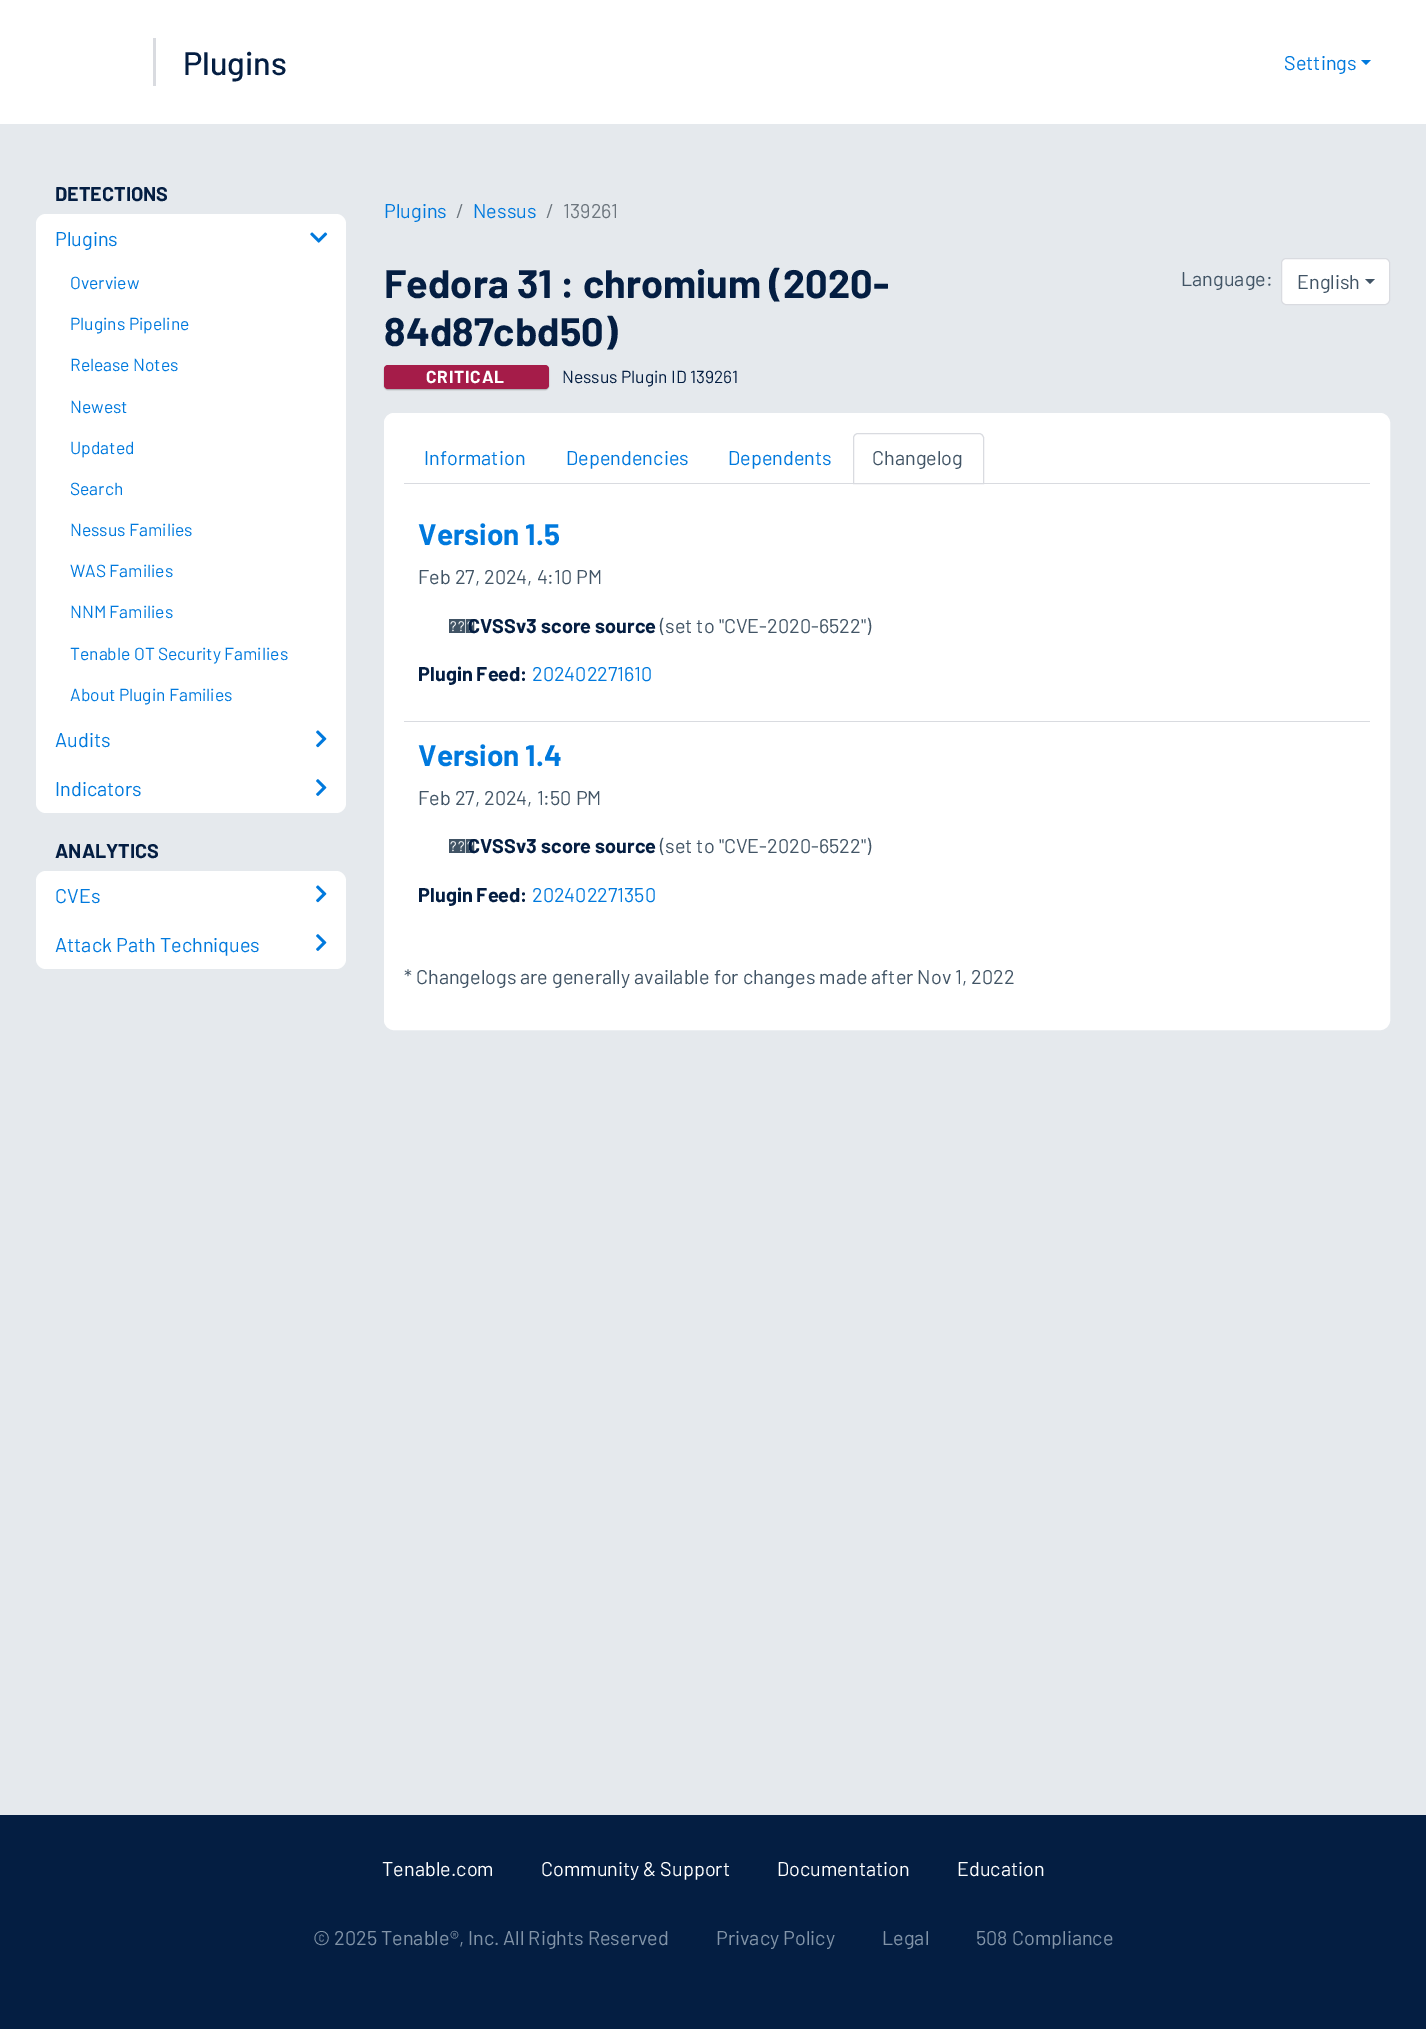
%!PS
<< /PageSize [1426 2029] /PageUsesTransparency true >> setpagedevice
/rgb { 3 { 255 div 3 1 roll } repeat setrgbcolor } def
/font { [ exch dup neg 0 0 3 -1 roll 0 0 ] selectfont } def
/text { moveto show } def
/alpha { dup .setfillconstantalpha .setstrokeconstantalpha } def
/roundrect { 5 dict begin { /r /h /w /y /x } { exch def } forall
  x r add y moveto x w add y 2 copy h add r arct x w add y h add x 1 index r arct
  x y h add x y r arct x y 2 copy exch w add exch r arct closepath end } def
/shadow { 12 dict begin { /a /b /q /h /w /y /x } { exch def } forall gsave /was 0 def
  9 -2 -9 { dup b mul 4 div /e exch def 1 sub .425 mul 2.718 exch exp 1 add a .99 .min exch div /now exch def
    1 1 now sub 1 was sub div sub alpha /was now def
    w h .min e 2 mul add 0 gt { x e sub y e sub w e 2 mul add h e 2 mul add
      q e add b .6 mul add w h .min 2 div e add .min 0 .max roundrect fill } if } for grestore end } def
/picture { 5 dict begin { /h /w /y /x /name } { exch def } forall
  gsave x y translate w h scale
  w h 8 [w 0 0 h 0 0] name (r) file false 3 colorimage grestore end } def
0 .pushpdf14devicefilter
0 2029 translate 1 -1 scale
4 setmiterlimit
255 255 255 rgb
0 0 1426 2029 rectfill
217 219 224 rgb
153 38 3 48 rectfill
0 121 221 rgb
1361 60 moveto 10 0 rlineto -5 5 rlineto closepath fill
229 233 237 rgb
0 124 1426 1691 rectfill
255 255 255 rgb
36 214 310 599 10 roundrect fill
(img_01.rgb) 310 232 18 11 picture
(img_02.rgb) 316 730 11 18 picture
(img_03.rgb) 316 779 11 17 picture
36 871 310 98 10 roundrect fill
(img_02.rgb) 316 885 11 18 picture
(img_03.rgb) 316 934 11 17 picture
0 0 0 rgb
384 366 165 24 4 0.5 0.25 shadow
165 28 73 rgb
384 365 165 24 4 roundrect fill
255 255 255 rgb
1281.5 258.5 108 46 4.5 roundrect gsave fill grestore
217 219 224 rgb
stroke
65 84 101 rgb
1365 279 moveto 10 0 rlineto -5 5 rlineto closepath fill
255 255 255 rgb
384.5 413.5 1005 616 9.5 roundrect gsave fill grestore
stroke
217 219 224 rgb
404 483 966 1 rectfill
255 255 255 rgb
858 433.5 moveto 121 0 rlineto 2.5 0 4.5 2 4.5 4.5 rcurveto 0 45.5 rlineto -130 0 rlineto 0 -45.5 rlineto 0 -2.5 2 -4.5 4.5 -4.5 rcurveto closepath gsave fill grestore
217 219 224 rgb
stroke
404 721 966 1 rectfill
4 30 66 rgb
0 1815 1426 214 rectfill
/Barlow-Medium 32.5 font
(Plugins) 183 75 text
/Barlow-Regular 19.85 font
0 121 221 rgb
(Settings) 1284 70 text
/Barlow-Bold 19.85 font
4 30 66 rgb
(DETECTIONS) 55 201 text
/Barlow-Regular 19.85 font
0 121 221 rgb
(Plugins) 55 246 text
/Barlow-Regular 17.4 font
(Overview) 70 289 text
(Plugins Pipeline) 70 330 text
(Release Notes) 70 371 text
(Newest) 70 413 text
(Updated) 70 454 text
(Search) 70 495 text
(Nessus Families) 70 536 text
(WAS Families) 70 577 text
(NNM Families) 70 618 text
(Tenable OT Security Families) 70 660 text
(About Plugin Families) 70 701 text
/Barlow-Regular 19.85 font
(Audits) 55 747 text
(Indicators) 55 796 text
/Barlow-Bold 19.85 font
4 30 66 rgb
(ANALYTICS) 55 858 text
/Barlow-Regular 19.85 font
0 121 221 rgb
(CVEs) 55 903 text
(Attack Path Techniques) 55 952 text
(Plugins) 384 218 text
108 117 125 rgb
(/) 456 218 text
0 121 221 rgb
(Nessus) 473 218 text
108 117 125 rgb
(/) 546 218 text
(139261) 563 218 text
/Barlow-Bold 39.75 font
4 30 66 rgb
(Fedora 31 : chromium \(2020-) 384 298 text
(84d87cbd50\)) 384 346 text
/Barlow-Bold 17.4 font
255 255 255 rgb
426 383 moveto 0.75 0 (CRITICAL) ashow
/Barlow-Regular 17.4 font
4 30 66 rgb
(Nessus Plugin ID 139261) 562 383 text
/Barlow-Regular 19.85 font
65 84 101 rgb
(Language:) 1181 286 text
(English) 1297 289 text
0 121 221 rgb
(Information) 424 465 text
(Dependencies) 566 465 text
(Dependents) 728 465 text
65 84 101 rgb
(Changelog) 872 465 text
/Barlow-Bold 29.75 font
0 121 221 rgb
(Version 1.5) 418 545 text
/Barlow-Regular 19.85 font
65 84 101 rgb
(Feb 27, 2024, 4:10 PM) 418 584 text
(‑) 449 633 text
/Barlow-Bold 19.85 font
4 30 66 rgb
(CVSSv3 score source) 468 633 text
/Barlow-Regular 19.85 font
65 84 101 rgb
(\(set to "CVE-2020-6522"\)) 660 633 text
/Barlow-Bold 19.85 font
4 30 66 rgb
(Plugin Feed:) 418 681 text
/Barlow-Regular 19.85 font
0 121 221 rgb
(202402271610) 532 681 text
/Barlow-Bold 29.75 font
(Version 1.4) 418 766 text
/Barlow-Regular 19.85 font
65 84 101 rgb
(Feb 27, 2024, 1:50 PM) 418 805 text
(‑) 449 853 text
/Barlow-Bold 19.85 font
4 30 66 rgb
(CVSSv3 score source) 468 853 text
/Barlow-Regular 19.85 font
65 84 101 rgb
(\(set to "CVE-2020-6522"\)) 660 853 text
/Barlow-Bold 19.85 font
4 30 66 rgb
(Plugin Feed:) 418 902 text
/Barlow-Regular 19.85 font
0 121 221 rgb
(202402271350) 532 902 text
65 84 101 rgb
(* Changelogs are generally available for changes made after Nov 1, 2022) 404 984 text
255 255 255 rgb
(Tenable.com) 382 1876 text
(Community & Support) 541 1876 text
(Documentation) 777 1876 text
(Education) 957 1876 text
130 148 168 rgb
(© 2025 Tenable®, Inc. All Rights Reserved) 313 1945 text
(Privacy Policy) 716 1945 text
(Legal) 882 1945 text
(508 Compliance) 976 1945 text
.poppdf14devicefilter showpage
